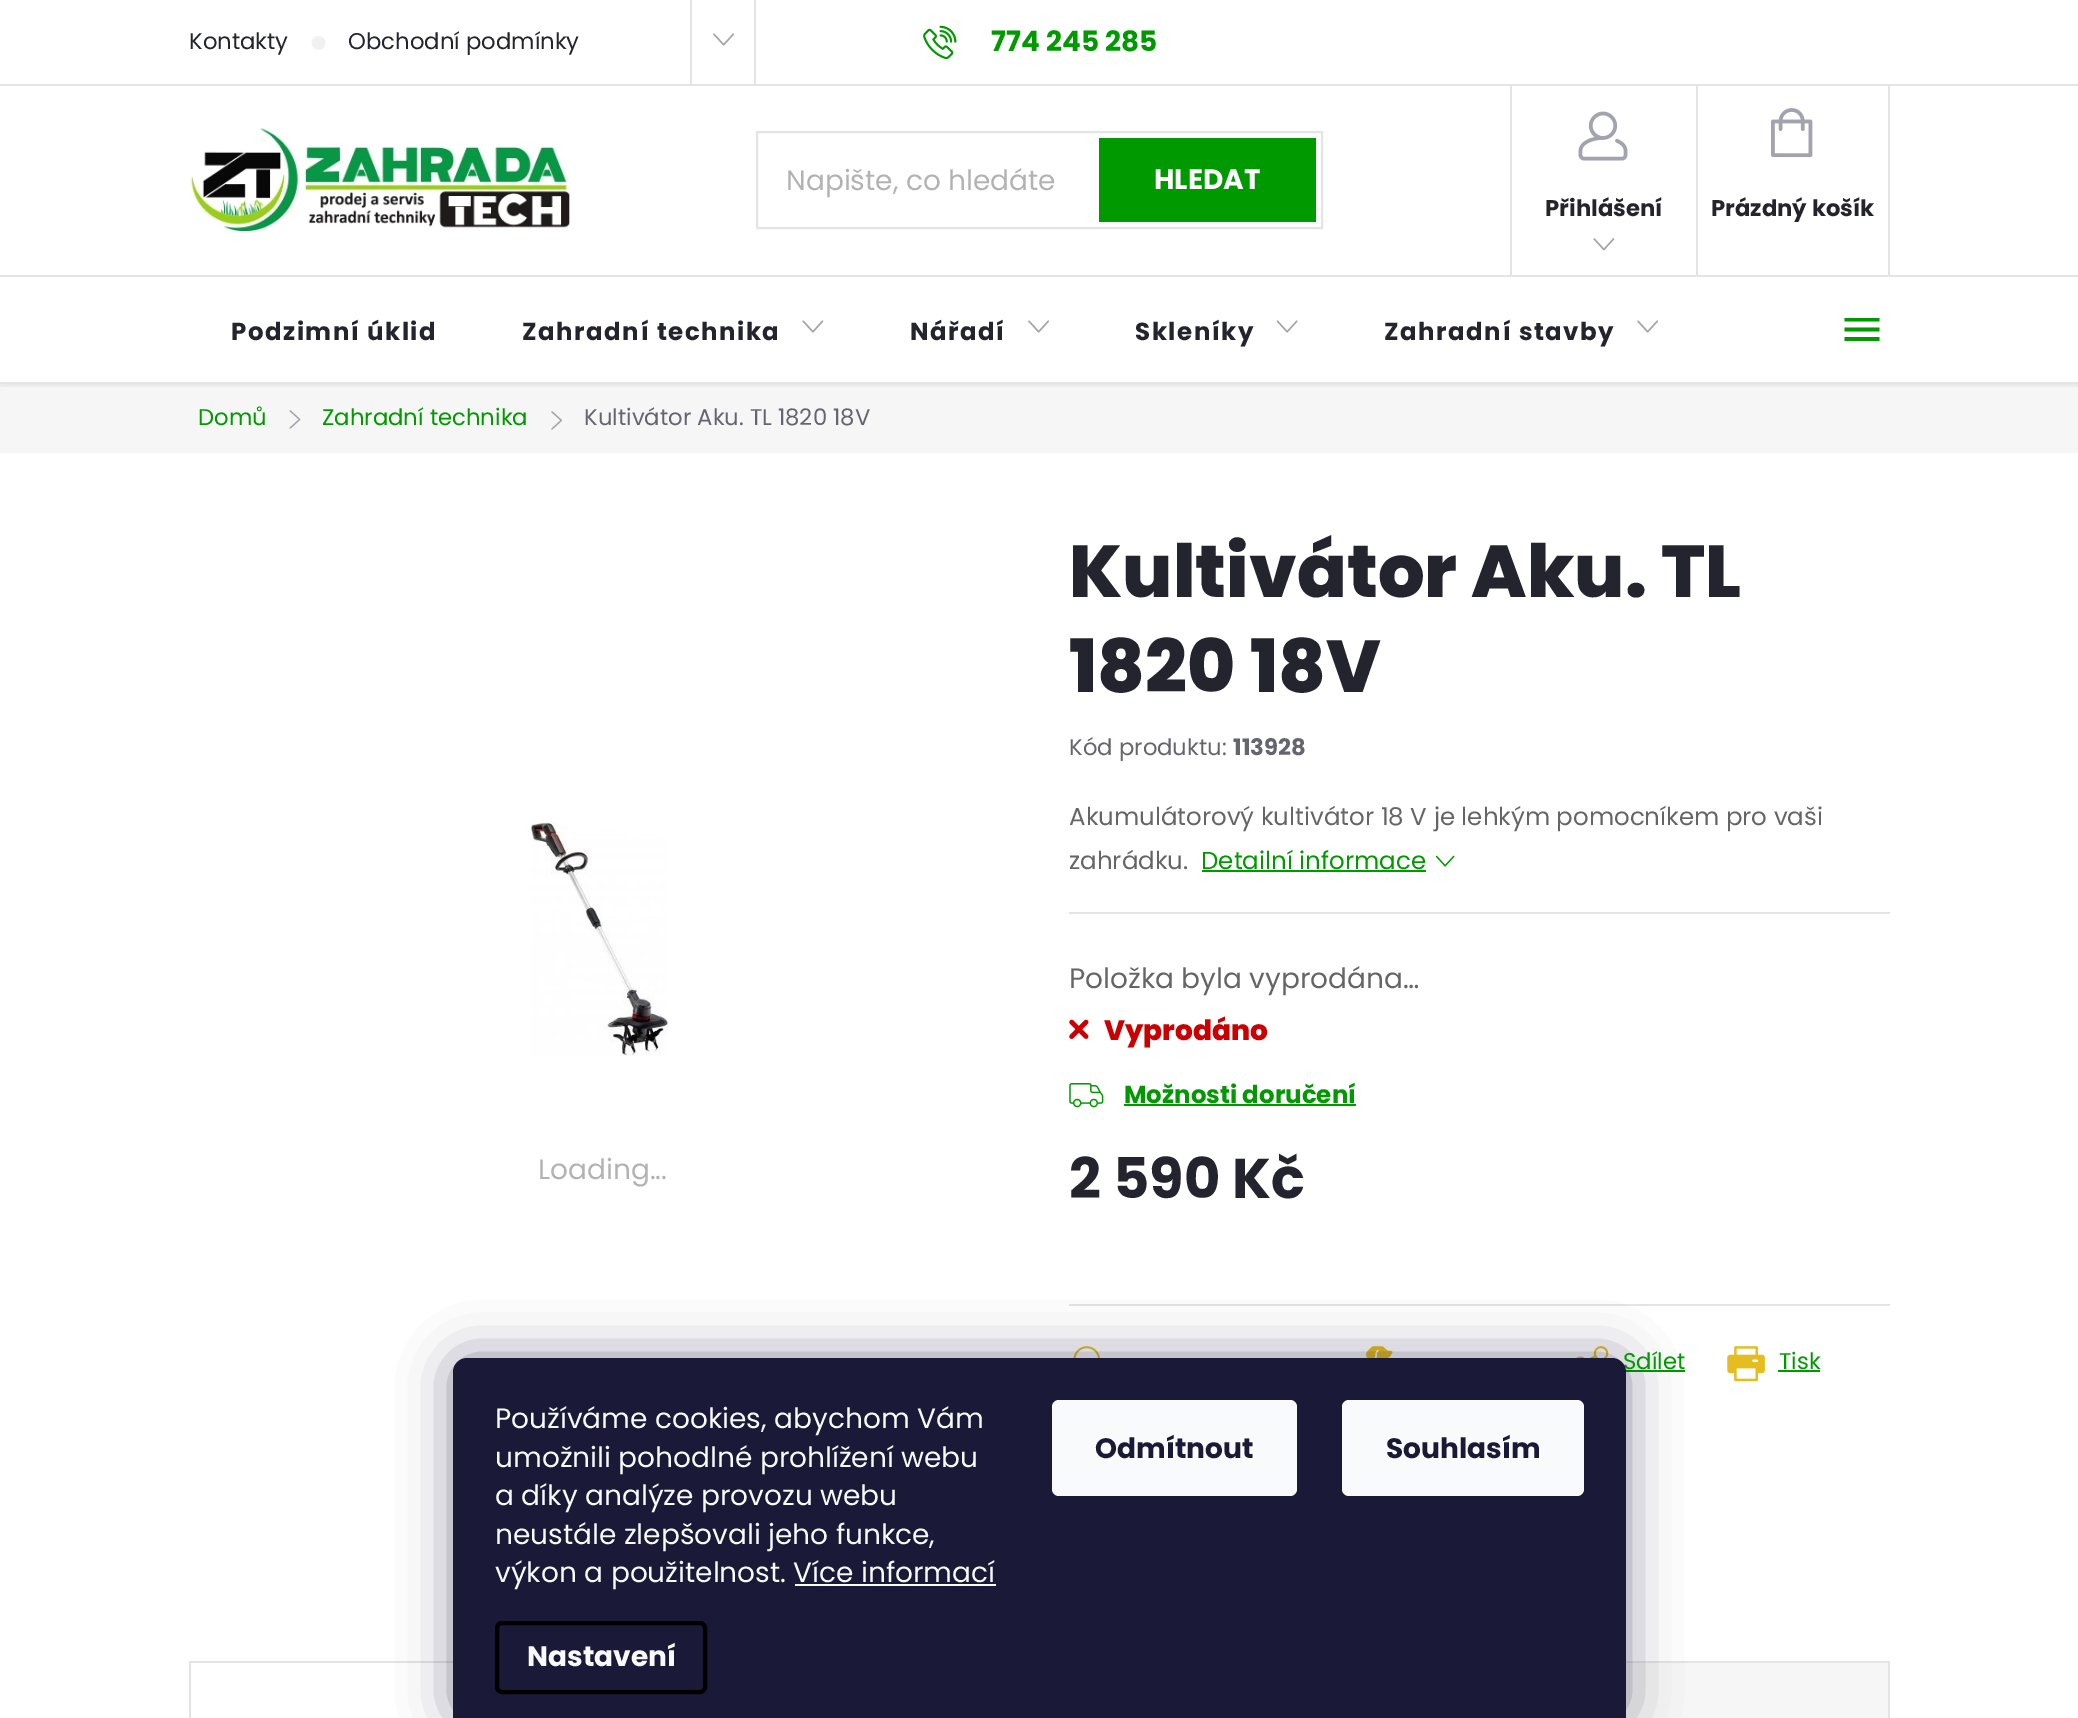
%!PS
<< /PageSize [2078 1718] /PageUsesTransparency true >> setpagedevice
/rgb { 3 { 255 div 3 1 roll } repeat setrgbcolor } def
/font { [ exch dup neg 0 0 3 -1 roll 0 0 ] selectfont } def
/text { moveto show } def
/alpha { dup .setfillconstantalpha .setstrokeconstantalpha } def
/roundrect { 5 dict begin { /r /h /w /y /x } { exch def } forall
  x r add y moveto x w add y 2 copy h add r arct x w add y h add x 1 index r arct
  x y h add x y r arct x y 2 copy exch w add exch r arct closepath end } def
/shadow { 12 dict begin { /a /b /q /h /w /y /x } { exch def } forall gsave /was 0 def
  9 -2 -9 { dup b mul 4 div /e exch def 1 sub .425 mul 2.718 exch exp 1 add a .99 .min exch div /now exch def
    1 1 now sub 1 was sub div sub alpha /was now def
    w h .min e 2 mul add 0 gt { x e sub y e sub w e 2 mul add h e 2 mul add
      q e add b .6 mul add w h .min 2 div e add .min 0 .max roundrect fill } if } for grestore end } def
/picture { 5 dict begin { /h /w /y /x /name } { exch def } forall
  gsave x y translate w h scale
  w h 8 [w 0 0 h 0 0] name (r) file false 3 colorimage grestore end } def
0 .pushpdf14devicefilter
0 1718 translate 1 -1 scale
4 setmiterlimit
255 255 255 rgb
0 0 2078 1718 rectfill
228 228 228 rgb
0 84 2078 2 rectfill
(img_01.rgb) 311 36 15 14 picture
754 0 2 84 rectfill
690 0 2 84 rectfill
(img_02.rgb) 713 33 21 13 picture
(img_03.rgb) 923 25 34 35 picture
(img_04.rgb) 189 127 383 105 picture
2 setlinewidth
757 132 565 96 rectstroke
0 153 0 rgb
1099 138 217 84 rectfill
228 228 228 rgb
1510 86 2 189 rectfill
(img_05.rgb) 1578 111 50 50 picture
(img_06.rgb) 1593 238 22 13 picture
1888 86 2 189 rectfill
1696 86 2 189 rectfill
(img_07.rgb) 1771 108 42 50 picture
246 246 246 rgb
0 384 2078 69 rectfill
gsave
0 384 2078 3 rectclip
0 0 0 rgb
0 278 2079 109 0 2 0.05 shadow
grestore
(img_08.rgb) 802 320 22 13 picture
(img_02.rgb) 1028 320 21 13 picture
(img_09.rgb) 1276 320 22 13 picture
(img_02.rgb) 1637 320 21 13 picture
0 153 0 rgb
1844.5 341 moveto 35 0 rlineto 0 -4 rlineto -35 0 rlineto closepath 1844.5 331.5 moveto 35 0 rlineto 0 -4 rlineto -35 0 rlineto closepath 1844.5 318 moveto 0 3.5 rlineto 35 0 rlineto 0 -3.5 rlineto closepath fill
228 228 228 rgb
0 275 2078 2 rectfill
0 382 2078 2 rectfill
(img_10.rgb) 289 410 12 19 picture
(img_11.rgb) 551 411 11 19 picture
(img_12.rgb) 530 822 138 234 picture
1069 912 821 2 rectfill
0 153 0 rgb
1202 870 224 2 rectfill
(img_13.rgb) 1435 855 20 12 picture
(img_14.rgb) 1069 1019 20 20 picture
(img_15.rgb) 1069 1083 35 25 picture
1124 1104 232 2 rectfill
228 228 228 rgb
1069 1304 821 2 rectfill
(img_16.rgb) 1073 1346 27 12 picture
(img_17.rgb) 1366 1346 27 12 picture
(img_18.rgb) 1576 1346 33 12 picture
0 153 0 rgb
1622 1370 63 2 rectfill
(img_19.rgb) 1727 1346 38 36 picture
1778 1370 42 2 rectfill
228 228 228 rgb
189 1661 1701 2 rectfill
189 1661 2 57 rectfill
246 246 246 rgb
1626 1663 262 55 rectfill
228 228 228 rgb
1888 1663 2 55 rectfill
27 25 57 rgb
453 1358 1173 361 14 26 0.5 shadow
/Poppins-Regular 22.75 font
36 36 46 rgb
(Kontakty) 189 49 text
(Obchodní podmínky) 348 49 text
/Poppins-Bold 28 font
0 153 0 rgb
(774 245 285) 991 51 text
/Poppins-Regular 28 font
178 178 178 rgb
(Napište, co hledáte) 786 190 text
/Poppins-Bold 28 font
255 255 255 rgb
(HLEDAT) 1154 189 text
/Poppins-Bold 22.75 font
36 36 46 rgb
(Přihlášení) 1545 216 text
(Prázdný košík) 1711 216 text
/Poppins-Bold 24.5 font
231 340 moveto 1.5 0 (Podzimní úklid) ashow
522 340 moveto 1.5 0 (Zahradní technika) ashow
910 340 moveto 1.5 0 (Nářadí) ashow
1135 340 moveto 1.5 0 (Skleníky) ashow
1384 340 moveto 1.5 0 (Zahradní stavby) ashow
/Poppins-Regular 22.75 font
0 153 0 rgb
(Domů) 198 425 text
(Zahradní technika) 322 425 text
101 101 112 rgb
(Kultivátor Aku. TL 1820 18V) 584 425 text
/Poppins-Regular 28 font
178 178 178 rgb
(Loading...) 538 1179 text
/Poppins-ExtraBold 73.5 font
36 36 46 rgb
(Kultivátor Aku. TL) 1069 597 text
(1820 18V) 1069 692 text
/Poppins-Regular 22.75 font
101 101 112 rgb
(Kód produktu:) 1069 755 text
/Poppins-Bold 22.75 font
(113928) 1233 755 text
/Poppins-Regular 24.5 font
101 101 101 rgb
(Akumulátorový kultivátor 18 V je lehkým pomocníkem pro vaši) 1069 825 text
(zahrádku.) 1069 869 text
0 153 0 rgb
(Detailní informace) 1201 869 text
/Poppins-Regular 28 font
101 101 101 rgb
(Položka byla vyprodána…) 1069 988 text
/Poppins-ExtraBold 28 font
203 0 0 rgb
(Vyprodáno) 1104 1040 text
/Poppins-Bold 24.5 font
0 153 0 rgb
(Možnosti doručení) 1124 1103 text
/Poppins-Bold 56 font
36 36 46 rgb
(2 590 Kč) 1069 1198 text
/Poppins-Regular 22.75 font
0 153 0 rgb
(Sdílet) 1623 1369 text
(Tisk) 1779 1369 text
26 25 55 rgb
467 1358 moveto 1145 0 rlineto 7.5 0 14 6.5 14 14 rcurveto 0 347 rlineto -1173 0 rlineto 0 -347 rlineto 0 -7.5 6.5 -14 14 -14 rcurveto closepath fill
/Poppins-Regular 28 font
248 250 251 rgb
(Používáme cookies, abychom Vám) 495 1428 text
(umožnili pohodlné prohlížení webu) 495 1467 text
(a díky analýze provozu webu) 495 1505 text
(neustále zlepšovali jeho funkce,) 495 1544 text
(výkon a použitelnost. Více informací) 495 1582 text
795 1584 201 2 rectfill
0 0 0 rgb
4 setlinewidth
497 1623 208 69 5 roundrect stroke
/Poppins-Bold 28 font
248 250 251 rgb
(Nastavení) 527 1666 text
1052 1400 245 96 7 roundrect fill
26 25 55 rgb
(Odmítnout) 1095 1458 text
248 250 251 rgb
1342 1400 242 96 7 roundrect fill
26 25 55 rgb
(Souhlasím) 1386 1458 text
.poppdf14devicefilter showpage
